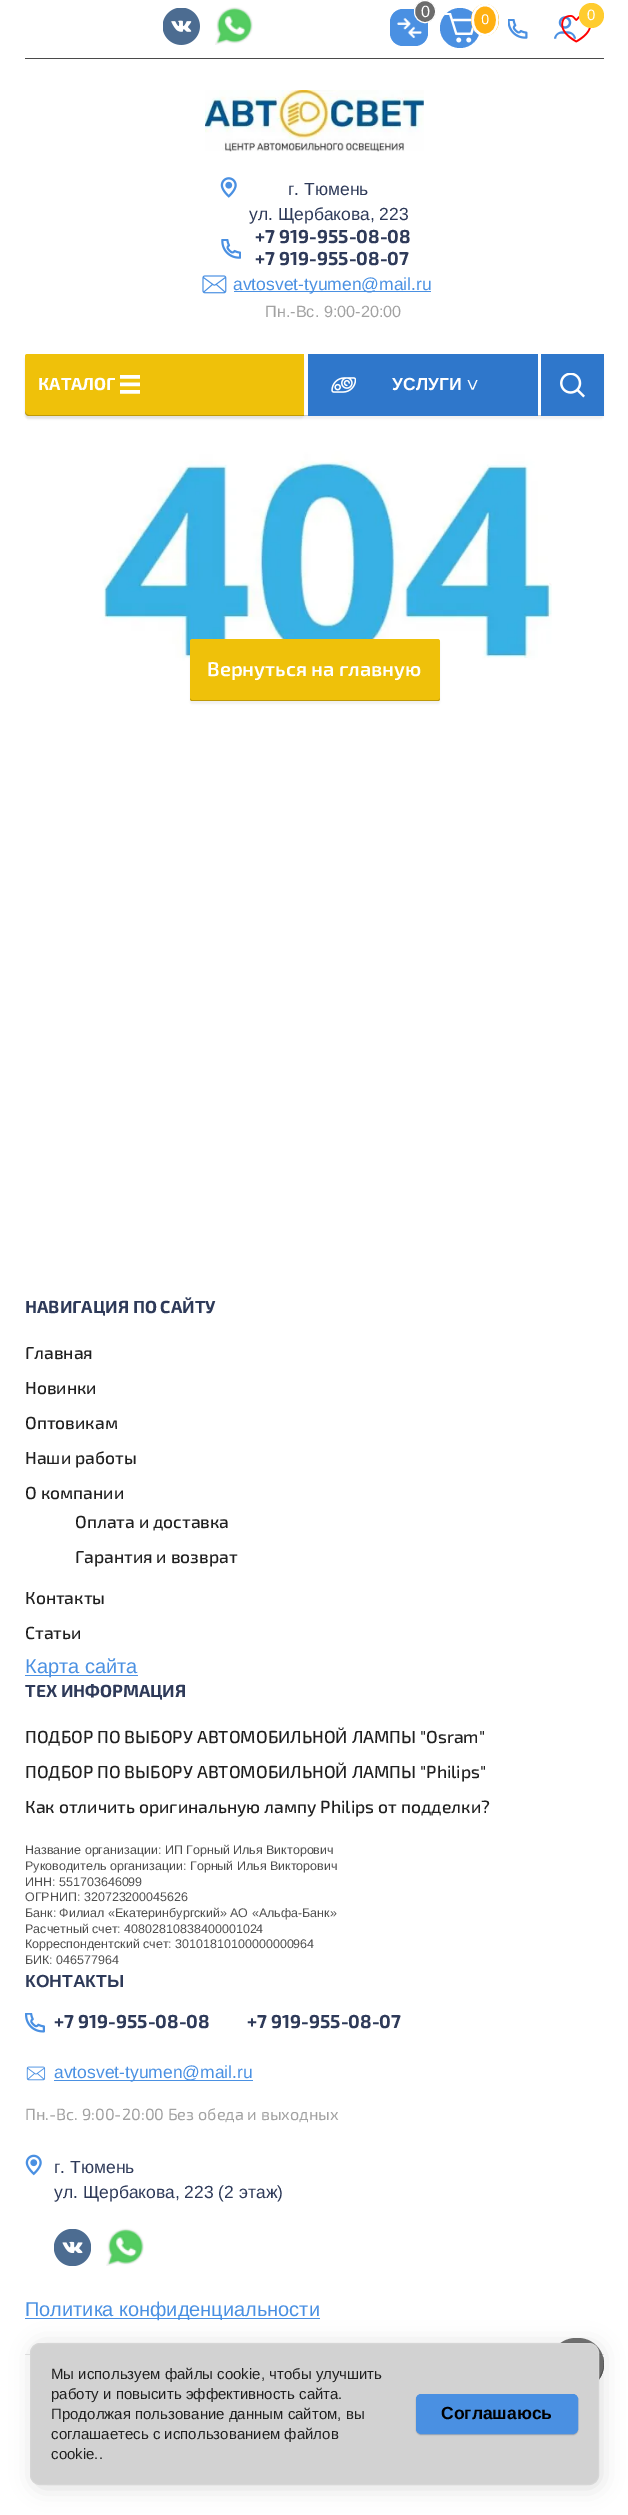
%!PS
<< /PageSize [628 2515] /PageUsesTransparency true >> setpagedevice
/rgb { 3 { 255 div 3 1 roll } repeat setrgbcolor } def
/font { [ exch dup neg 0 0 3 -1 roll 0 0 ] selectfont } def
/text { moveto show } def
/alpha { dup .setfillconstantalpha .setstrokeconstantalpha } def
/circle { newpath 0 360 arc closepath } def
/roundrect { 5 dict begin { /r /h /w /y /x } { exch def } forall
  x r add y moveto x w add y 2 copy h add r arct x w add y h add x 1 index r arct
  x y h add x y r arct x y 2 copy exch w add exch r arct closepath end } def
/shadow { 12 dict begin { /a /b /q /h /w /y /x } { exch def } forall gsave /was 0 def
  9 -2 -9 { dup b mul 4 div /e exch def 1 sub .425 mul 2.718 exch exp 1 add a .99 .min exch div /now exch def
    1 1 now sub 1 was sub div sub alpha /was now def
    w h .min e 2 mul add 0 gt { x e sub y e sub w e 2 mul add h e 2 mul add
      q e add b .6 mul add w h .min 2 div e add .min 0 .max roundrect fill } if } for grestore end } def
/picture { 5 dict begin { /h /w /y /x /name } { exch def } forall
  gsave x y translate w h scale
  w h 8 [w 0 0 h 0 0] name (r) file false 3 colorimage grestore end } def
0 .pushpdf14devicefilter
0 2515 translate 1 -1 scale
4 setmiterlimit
255 255 255 rgb
0 0 628 2515 rectfill
74 74 74 rgb
25 58 579 1 rectfill
(img_01.rgb) 163 8 37 37 picture
(img_02.rgb) 215 7 38 38 picture
74 144 226 rgb
390 9 38 37 13 roundrect fill
(img_03.rgb) 397 18 25 20 picture
108 108 108 rgb
414.5 0.5 21 22 10.5 roundrect gsave fill grestore
255 255 255 rgb
stroke
74 144 226 rgb
460 28 20 circle fill
(img_04.rgb) 445 13 29 30 picture
255 176 18 rgb
485 4 moveto 7.5 0 14 7 14 16 rcurveto 0 9 -6.5 16 -14 16 rcurveto -7.5 0 -14 -7 -14 -16 rcurveto 0 -9 6.5 -16 14 -16 rcurveto closepath fill
255 255 255 rgb
2.5 setlinewidth
485 5 moveto 16.5 0 16.5 30 0 30 rcurveto -16.5 0 -16.5 -30 0 -30 rcurveto closepath stroke
(img_05.rgb) 508 19 20 20 picture
(img_06.rgb) 554 16 22 23 picture
(img_07.rgb) 561 15 30 28 picture
255 204 47 rgb
591.5 15.5 12.5 circle fill
(img_08.rgb) 205 90 219 62 picture
(img_09.rgb) 220 177 17 21 picture
(img_10.rgb) 221 239 20 20 picture
(img_11.rgb) 202 275 25 19 picture
74 144 226 rgb
234 291 197 1 rectfill
0 0 0 rgb
25 356 579 63 4 1 0.05 shadow
255 255 255 rgb
27.5 354 moveto 574 0 rlineto 1.5 0 2.5 1 2.5 2.5 rcurveto 0 55.5 rlineto 0 2 -2 4 -4 4 rcurveto -571 0 rlineto -2 0 -4 -2 -4 -4 rcurveto 0 -55.5 rlineto 0 -1.5 1 -2.5 2.5 -2.5 rcurveto closepath fill
204 204 204 rgb
25 411 moveto 0 1 rlineto 0 2 2 4 4 4 rcurveto 571 0 rlineto 2 0 4 -2 4 -4 rcurveto 0 -1 rlineto 0 2 -2 4 -4 4 rcurveto -571 0 rlineto -2 0 -4 -2 -4 -4 rcurveto closepath fill
0 0 0 rgb
25 356 279 63 4 1 0.05 shadow
239 193 10 rgb
27.5 354 moveto 276.5 0 rlineto 0 62 rlineto -275 0 rlineto -2 0 -4 -2 -4 -4 rcurveto 0 -55.5 rlineto 0 -1.5 1 -2.5 2.5 -2.5 rcurveto closepath fill
(img_12.rgb) 120 375 20 19 picture
0.2 alpha
0 0 0 rgb
25 411 moveto 0 3 1 5 4 5 rcurveto 275 0 rlineto 0 -1 rlineto -275 0 rlineto -2 0 -4 -2 -4 -4 rcurveto closepath fill
1 alpha
47 119 203 rgb
308 354 230 62 rectfill
(img_13.rgb) 331 377 25 16 picture
541 354 63 62 rectfill
(img_14.rgb) 560 373 25 25 picture
(img_15.rgb) 26 428 526 233 picture
0 0 0 rgb
190 641 250 63 2.5 1 0.05 shadow
239 193 10 rgb
190 639 250 62 2.5 roundrect fill
190 153 8 rgb
190 698 moveto 0 2 1 3 2 3 rcurveto 246 0 rlineto 1 0 2 -1 2 -3 rcurveto 0 1 -1 2 -2 2 rcurveto -246 0 rlineto -1 0 -2 -1 -2 -2 rcurveto closepath fill
74 144 226 rgb
25 1675 113 1 rectfill
(img_16.rgb) 25 2013 20 20 picture
(img_17.rgb) 26 2066 20 15 picture
54 2080 199 1 rectfill
(img_18.rgb) 25 2154 17 22 picture
(img_19.rgb) 54 2229 37 37 picture
(img_20.rgb) 106 2228 38 38 picture
25 2318 295 1 rectfill
229 229 229 rgb
25 2354 579 1 rectfill
0.7 alpha
51 51 51 rgb
550 2338 54 52 26 roundrect fill
1 alpha
80 80 80 rgb
550 2360 moveto -5 30 40 42 52 14 rcurveto 2 -5 3 -11 1 -17 rcurveto 2 7 0 15 -4 21 rcurveto -15 22 -52 8 -49 -18 rcurveto closepath fill
0 0 0 rgb
33 2345 568 143 10 11 0.14 shadow
210 210 210 rgb
30.5 2343.5 568 141 9.5 roundrect gsave fill grestore
214 214 214 rgb
1 setlinewidth
stroke
0 0 0 rgb
416 2395 162 40 5 0.5 0.2 shadow
74 144 226 rgb
416.5 2394.5 161 39 4.5 roundrect gsave fill grestore
stroke
/LiberationSans-Regular 16.25 font
255 255 255 rgb
(0) 421 17 text
/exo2-Regular 14 font
(0) 481 24 text
/LiberationSans-Regular 15 font
(0) 587 20 text
/LiberationSans-Regular 17.5 font
46 58 89 rgb
(г. Тюмень) 288 195 text
(ул. Щербакова, 223) 249 220 text
/exo2-Bold 18.75 font
(+7 919-955-08-08) 255 243 text
(+7 919-955-08-07) 255 265 text
/LiberationSans-Regular 17.5 font
74 144 226 rgb
(avtosvet-tyumen@mail.ru) 233 290 text
/LiberationSans-Regular 16.25 font
162 162 162 rgb
(Пн.-Вс. 9:00-20:00) 265 317 text
/exo2-Bold 17.5 font
255 255 255 rgb
(КАТАЛОГ) 38 390 text
/LiberationSans-Bold 17.5 font
(УСЛУГИ) 392 390 text
/LiberationSans-Regular 20 font
gsave 466 379 translate 90 rotate 0 0 moveto (>) show grestore
/Exo2-SemiBold 20 font
(Вернуться на главную) 207 676 text
/exo2-Bold 17.5 font
46 58 89 rgb
(НАВИГАЦИЯ ПО САЙТУ) 25 1313 text
/Exo2-Medium 17.5 font
32 32 32 rgb
(Главная) 25 1359 text
(Новинки) 25 1394 text
(Оптовикам) 25 1429 text
(Наши работы) 25 1464 text
(О компании) 25 1499 text
(Оплата и доставка) 75 1528 text
(Гарантия и возврат) 75 1563 text
(Контакты) 25 1604 text
(Статьи) 25 1639 text
/LiberationSans-Regular 20 font
74 144 226 rgb
(Карта сайта) 25 1673 text
/exo2-Bold 17.5 font
46 58 89 rgb
(ТЕХ ИНФОРМАЦИЯ) 25 1697 text
/Exo2-Medium 17.5 font
32 32 32 rgb
(ПОДБОР ПО ВЫБОРУ АВТОМОБИЛЬНОЙ ЛАМПЫ "Osram") 25 1743 text
(ПОДБОР ПО ВЫБОРУ АВТОМОБИЛЬНОЙ ЛАМПЫ "Philips") 25 1778 text
(Как отличить оригинальную лампу Philips от подделки?) 25 1813 text
/LiberationSans-Regular 12.5 font
80 80 80 rgb
(Название организации: ИП Горный Илья Викторович) 25 1854 text
(Руководитель организации: Горный Илья Викторович) 25 1870 text
(ИНН: 551703646099) 25 1886 text
(ОГРНИП: 320723200045626) 25 1901 text
(Банк: Филиал «Екатеринбургский» АО «Альфа-Банк») 25 1917 text
(Расчетный счет: 40802810838400001024) 25 1933 text
(Корреспондентский счет: 30101810100000000964) 25 1948 text
(БИК: 046577964) 25 1964 text
/LiberationSans-Bold 17.5 font
46 58 89 rgb
(КОНТАКТЫ) 25 1987 text
/exo2-Bold 18.75 font
(+7 919-955-08-08) 54 2028 text
(+7 919-955-08-07) 247 2028 text
/LiberationSans-Regular 17.5 font
74 144 226 rgb
(avtosvet-tyumen@mail.ru) 54 2078 text
/exo2-Regular 16.25 font
162 162 162 rgb
(Пн.-Вс. 9:00-20:00 Без обеда и выходных) 25 2120 text
/LiberationSans-Regular 17.5 font
46 58 89 rgb
(г. Тюмень) 54 2173 text
(ул. Щербакова, 223 \(2 этаж\)) 54 2198 text
/LiberationSans-Regular 20 font
74 144 226 rgb
(Политика конфиденциальности) 25 2316 text
/LiberationSans-Regular 15 font
32 32 32 rgb
(Мы используем файлы cookie, чтобы улучшить) 51 2379 text
(работу и повысить эффективность сайта.) 51 2399 text
(Продолжая пользование данным сайтом, вы) 51 2419 text
(соглашаетесь с использованием файлов) 51 2439 text
(cookie..) 51 2459 text
/LiberationSans-Bold 17.5 font
0 0 0 rgb
(Соглашаюсь) 441 2419 text
.poppdf14devicefilter showpage
